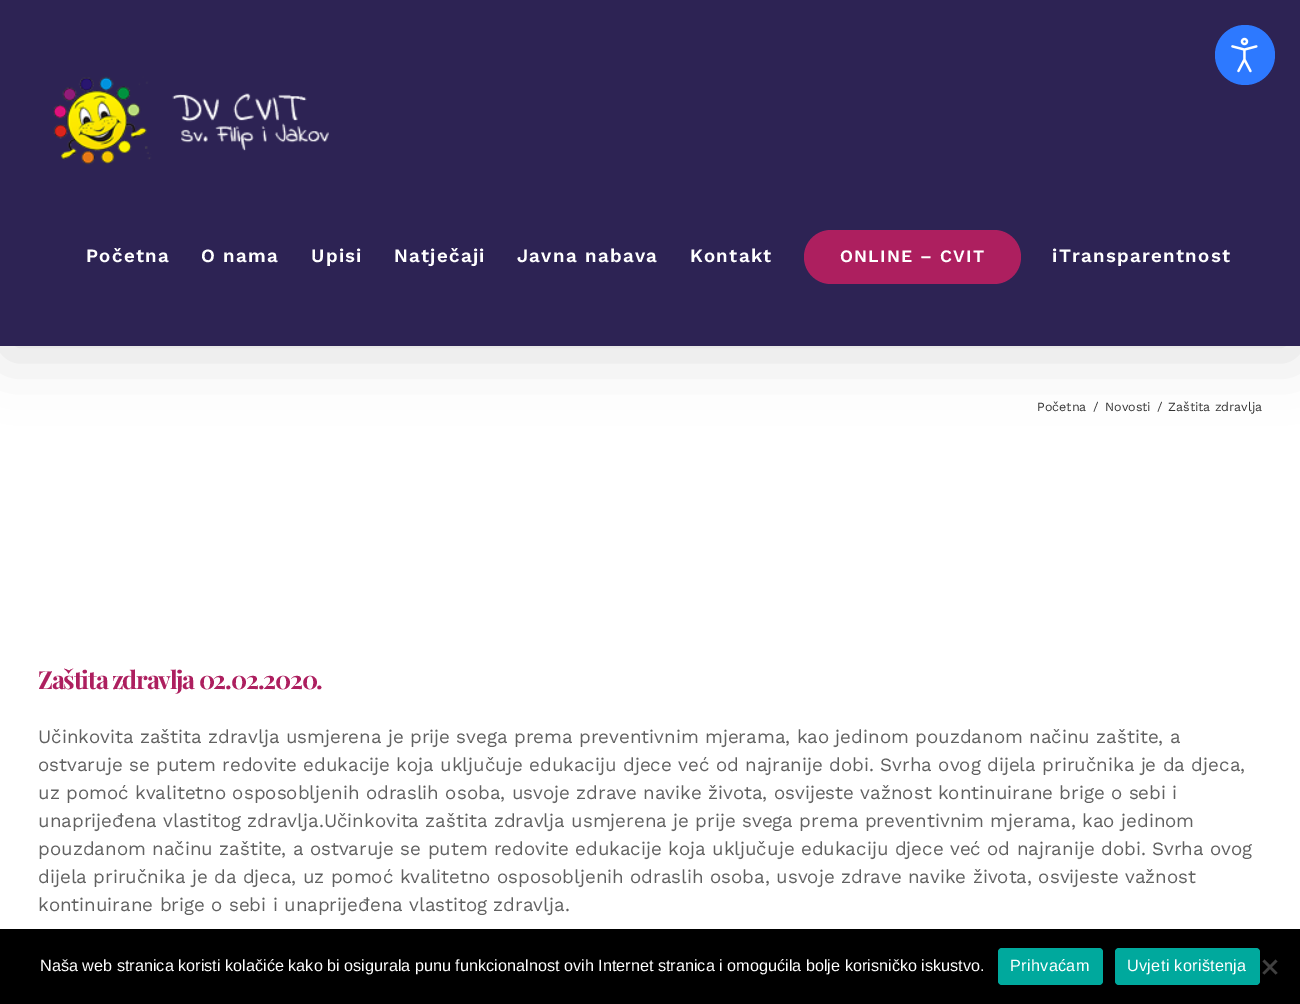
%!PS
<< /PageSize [1300 1004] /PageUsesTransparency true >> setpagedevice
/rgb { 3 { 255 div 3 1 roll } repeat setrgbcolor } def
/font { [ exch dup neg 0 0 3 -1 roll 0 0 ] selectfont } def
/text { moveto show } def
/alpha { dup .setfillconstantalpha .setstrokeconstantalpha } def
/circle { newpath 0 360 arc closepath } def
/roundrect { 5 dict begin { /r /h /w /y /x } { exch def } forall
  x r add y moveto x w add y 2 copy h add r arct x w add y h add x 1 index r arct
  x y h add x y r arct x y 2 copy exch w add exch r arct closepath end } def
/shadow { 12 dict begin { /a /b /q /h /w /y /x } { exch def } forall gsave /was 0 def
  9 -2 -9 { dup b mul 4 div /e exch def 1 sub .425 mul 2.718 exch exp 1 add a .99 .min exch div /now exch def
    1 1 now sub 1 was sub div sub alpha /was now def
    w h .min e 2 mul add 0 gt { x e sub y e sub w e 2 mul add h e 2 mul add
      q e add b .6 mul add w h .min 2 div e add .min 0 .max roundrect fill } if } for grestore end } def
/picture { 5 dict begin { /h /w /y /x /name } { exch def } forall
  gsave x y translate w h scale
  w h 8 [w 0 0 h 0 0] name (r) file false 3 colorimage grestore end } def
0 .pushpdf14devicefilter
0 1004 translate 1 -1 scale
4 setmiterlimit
255 255 255 rgb
0 0 1300 1004 rectfill
0 0 0 rgb
3 15 1295 341 0 31 0.14 shadow
45 35 84 rgb
0 0 1300 346 rectfill
45 121 255 rgb
1245 55 30 circle fill
(img_01.rgb) 1231 37 27 36 picture
(img_02.rgb) 53 76 276 89 picture
173 31 95 rgb
804 230 217 54 27 roundrect fill
0 0 0 rgb
0 929 1300 75 rectfill
0 169 157 rgb
998 948 105 37 4 roundrect fill
1115 948 145 37 4 roundrect fill
64 64 64 rgb
1275.5 959.5 moveto 2 2 rlineto -13 13 rlineto -2 -1.5 rlineto closepath fill
1262.5 961.5 moveto 2 -2 rlineto 13 13.5 rlineto -2 1.5 rlineto closepath fill
/WorkSans-SemiBold 18.75 font
255 255 255 rgb
86 262 moveto 1.25 0 (Početna) ashow
201 262 moveto 1.25 0 (O nama) ashow
311 262 moveto 1.25 0 (Upisi) ashow
394 262 moveto 1.25 0 (Natječaji) ashow
517 262 moveto 1.25 0 (Javna nabava) ashow
690 262 moveto 1.25 0 (Kontakt) ashow
/WorkSans-SemiBold 17.5 font
840 262 moveto 1.25 0 (ONLINE – CVIT) ashow
/WorkSans-SemiBold 18.75 font
1052 262 moveto 1.25 0 (iTransparentnost) ashow
/WorkSans-Regular 12.5 font
51 51 51 rgb
(Početna) 1037 411 text
(/) 1093 411 text
(Novosti) 1105 411 text
(/) 1157 411 text
(Zaštita zdravlja) 1168 411 text
/PlayfairDisplay-Bold 25 font
173 31 95 rgb
38 689 moveto -1.25 0 (Zaštita zdravlja 02.02.2020.) ashow
/WorkSans-Regular 18.75 font
97 97 97 rgb
(Učinkovita zaštita zdravlja usmjerena je prije svega prema preventivnim mjerama, kao jedinom pouzdanom načinu zaštite, a) 38 743 text
(ostvaruje se putem redovite edukacije koja uključuje edukaciju djece već od najranije dobi. Svrha ovog dijela priručnika je da djeca,) 38 771 text
(uz pomoć kvalitetno osposobljenih odraslih osoba, usvoje zdrave navike života, osvijeste važnost kontinuirane brige o sebi i) 38 799 text
(unaprijeđena vlastitog zdravlja.Učinkovita zaštita zdravlja usmjerena je prije svega prema preventivnim mjerama, kao jedinom) 38 827 text
(pouzdanom načinu zaštite, a ostvaruje se putem redovite edukacije koja uključuje edukaciju djece već od najranije dobi. Svrha ovog) 38 855 text
(dijela priručnika je da djeca, uz pomoć kvalitetno osposobljenih odraslih osoba, usvoje zdrave navike života, osvijeste važnost) 38 883 text
(kontinuirane brige o sebi i unaprijeđena vlastitog zdravlja.) 38 911 text
/LiberationSans-Regular 16.25 font
255 255 255 rgb
(Naša web stranica koristi kolačiće kako bi osigurala punu funkcionalnost ovih Internet stranica i omogućila bolje korisničko iskustvo.) 40 971 text
1010 971 moveto 0.3 0 (Prihvaćam) ashow
1127 971 moveto 0.3 0 (Uvjeti korištenja) ashow
.poppdf14devicefilter showpage
